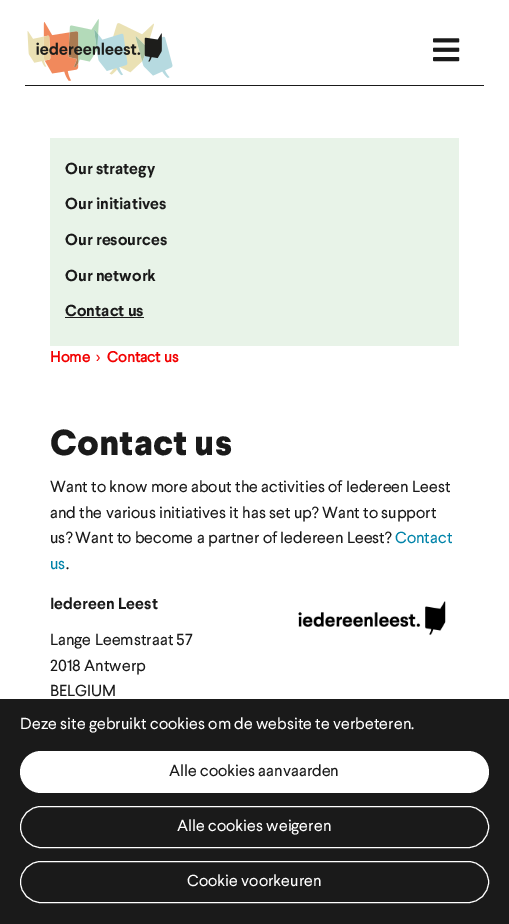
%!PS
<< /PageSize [509 924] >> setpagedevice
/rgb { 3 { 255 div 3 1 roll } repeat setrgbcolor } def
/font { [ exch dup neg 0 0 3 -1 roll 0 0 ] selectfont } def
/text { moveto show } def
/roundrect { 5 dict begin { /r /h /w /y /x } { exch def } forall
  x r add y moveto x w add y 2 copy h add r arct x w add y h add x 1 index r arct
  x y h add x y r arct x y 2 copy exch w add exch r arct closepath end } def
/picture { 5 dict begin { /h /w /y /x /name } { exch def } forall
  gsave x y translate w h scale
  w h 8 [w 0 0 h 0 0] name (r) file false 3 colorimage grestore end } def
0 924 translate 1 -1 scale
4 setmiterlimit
255 255 255 rgb
0 0 509 924 rectfill
26 26 26 rgb
25 85 459 1 rectfill
(img_01.rgb) 27 19 146 62 picture
(img_02.rgb) 433 38 27 24 picture
232 243 232 rgb
50 138 409 208 rectfill
26 26 26 rgb
65 317 79 1 rectfill
(img_03.rgb) 298 601 148 35 picture
0 699 509 225 rectfill
255 255 255 rgb
20 751 469 42 21 roundrect fill
20.5 806.5 468 41 20.5 roundrect stroke
20.5 861.5 468 41 20.5 roundrect stroke
/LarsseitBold-Regular 16 font
26 26 26 rgb
(Our strategy) 65 174 text
(Our initiatives) 65 209 text
(Our resources) 65 245 text
(Our network) 65 281 text
(Contact us) 65 316 text
/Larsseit-Bold 15 font
242 0 0 rgb
(Home) 50 362 text
/Larsseit-Regular 16 font
(>) 96 362 text
/Larsseit-Bold 15 font
(Contact us) 107 362 text
/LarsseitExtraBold-Regular 36 font
26 26 26 rgb
(Contact us) 50 455 text
/Larsseit-Regular 16 font
(Want to know more about the activities of Iedereen Leest) 50 492 text
(and the various initiatives it has set up? Want to support) 50 518 text
(us? Want to become a partner of Iedereen Leest?) 50 543 text
0 131 169 rgb
(Contact) 395 543 text
(us) 50 569 text
26 26 26 rgb
(.) 66 569 text
/LarsseitBold-Regular 16 font
(Iedereen Leest) 50 609 text
/Larsseit-Regular 16 font
(Lange Leemstraat 57) 50 645 text
(2018 Antwerp) 50 671 text
(BELGIUM) 50 696 text
255 255 255 rgb
(Deze site gebruikt cookies om de website te verbeteren.) 20 729 text
26 26 26 rgb
(Alle cookies aanvaarden) 169 776 text
255 255 255 rgb
(Alle cookies weigeren) 177 831 text
(Cookie voorkeuren) 187 886 text
showpage
